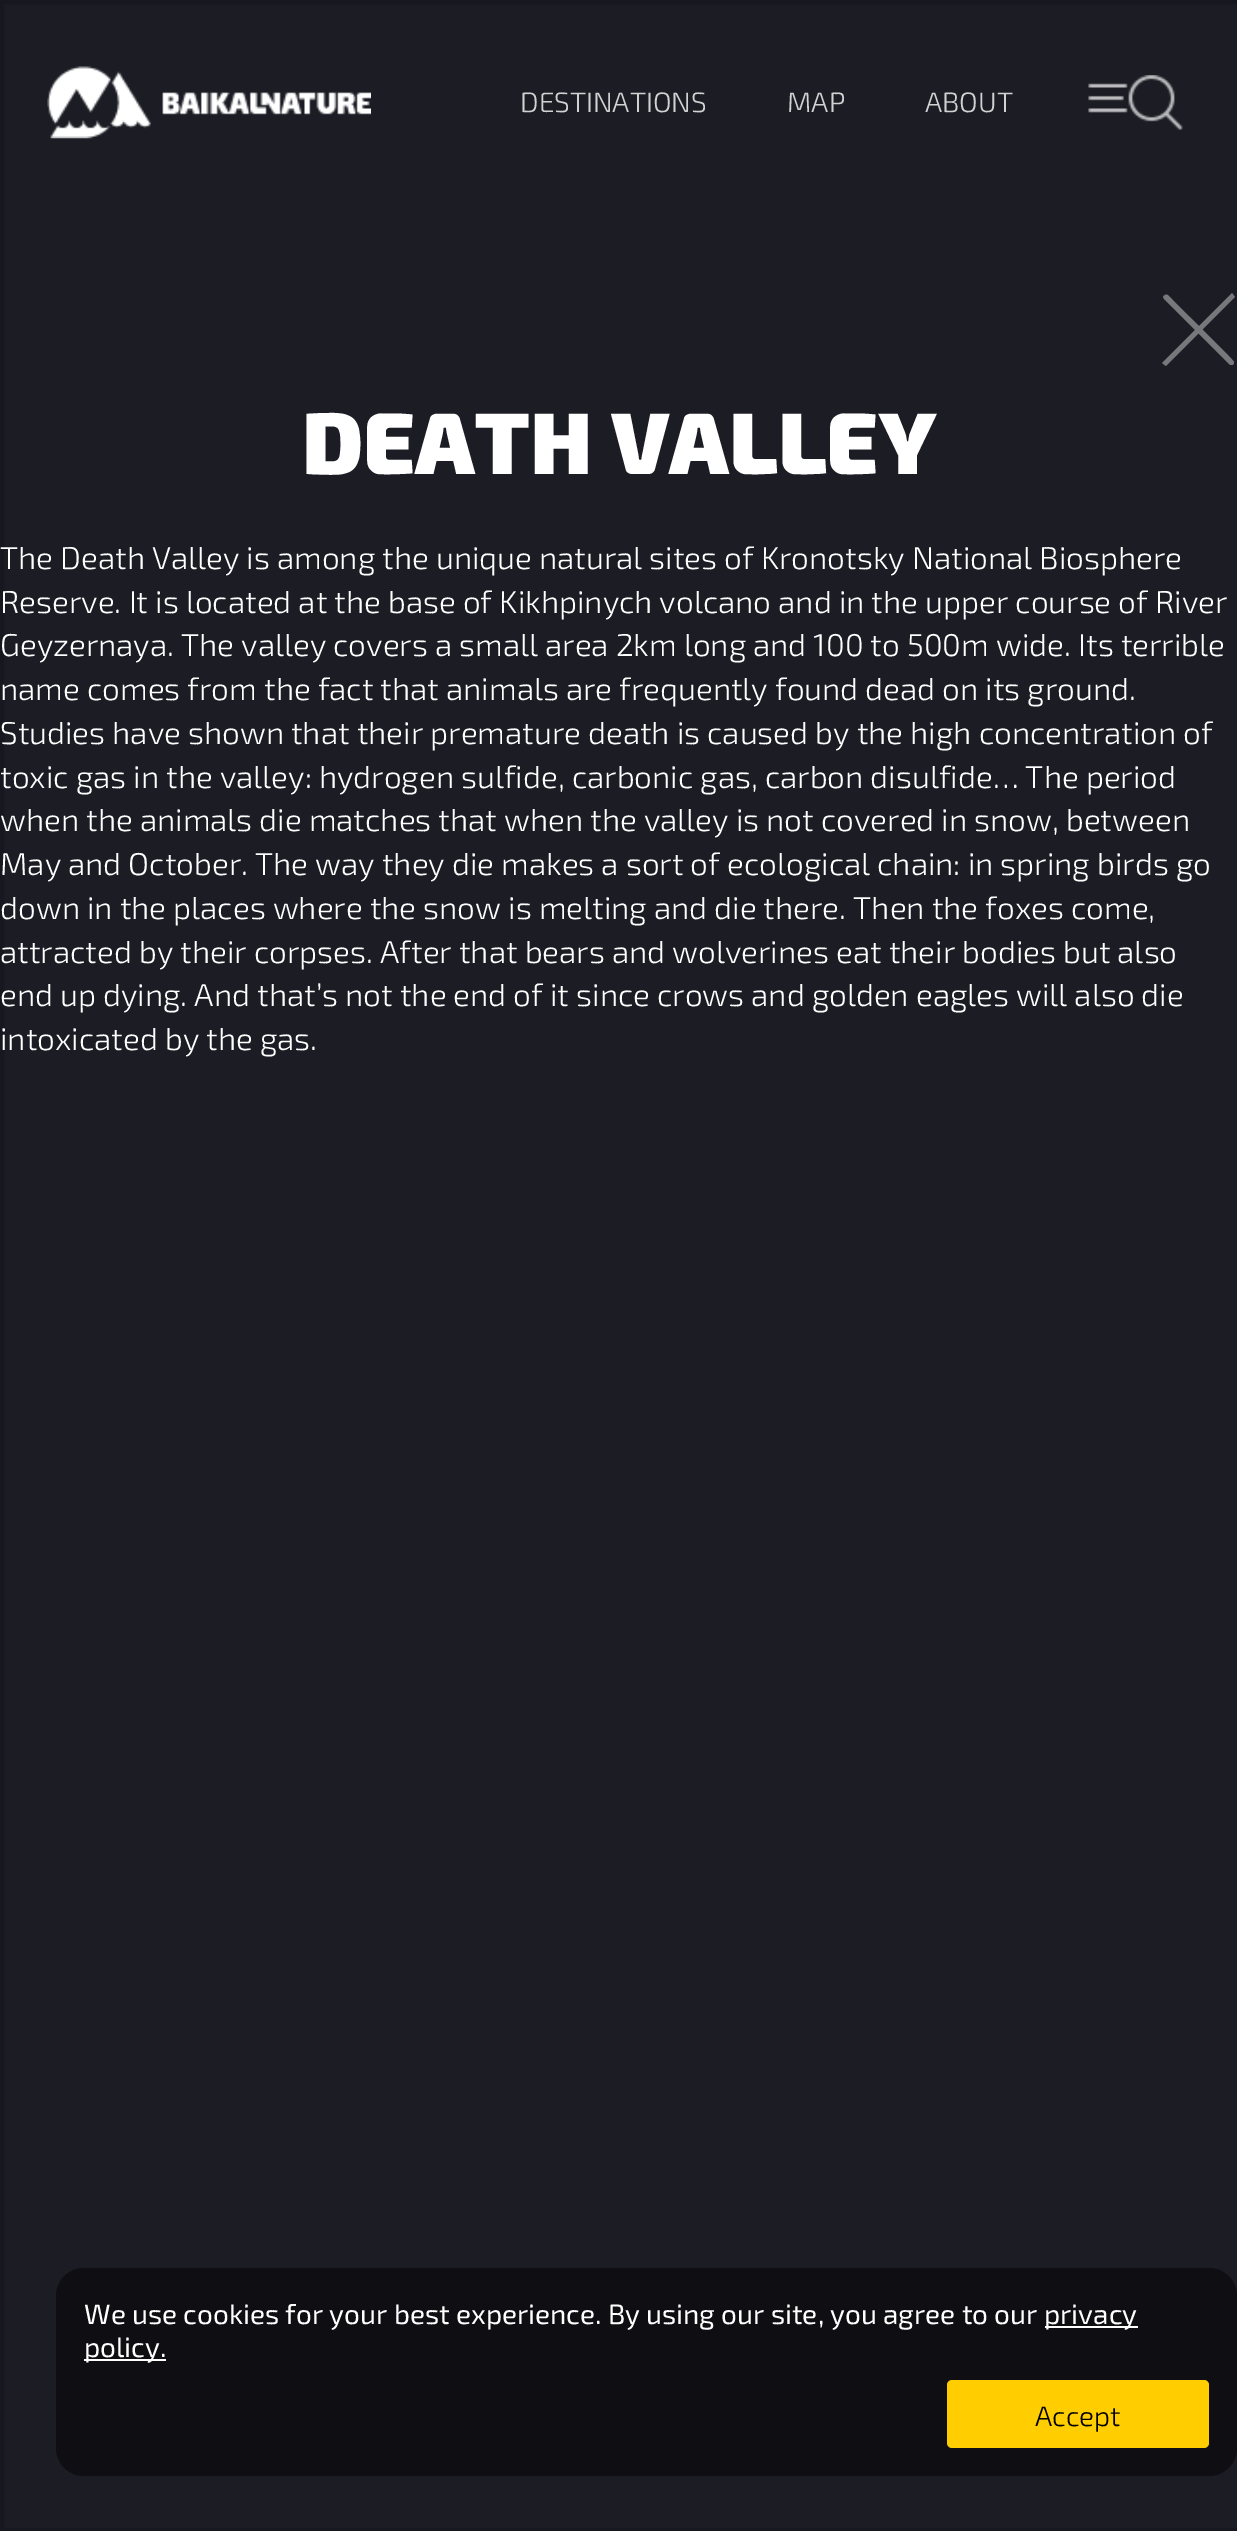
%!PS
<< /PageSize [1237 2531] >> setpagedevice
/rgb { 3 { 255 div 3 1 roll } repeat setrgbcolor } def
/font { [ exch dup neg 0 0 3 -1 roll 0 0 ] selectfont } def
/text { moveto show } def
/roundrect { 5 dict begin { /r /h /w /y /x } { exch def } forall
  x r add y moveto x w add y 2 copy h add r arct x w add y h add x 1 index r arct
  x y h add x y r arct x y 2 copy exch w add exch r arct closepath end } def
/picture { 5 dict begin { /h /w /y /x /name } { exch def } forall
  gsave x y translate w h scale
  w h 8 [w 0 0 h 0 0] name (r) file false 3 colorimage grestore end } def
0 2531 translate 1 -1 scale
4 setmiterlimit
28 28 37 rgb
0 0 1237 2531 rectfill
23 23 31 rgb
4 setlinewidth
2 2 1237 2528 rectstroke
(img_01.rgb) 47 66 324 73 picture
(img_02.rgb) 1088 75 95 55 picture
119 119 124 rgb
1168 295 moveto 6 7 66 65 66 67 rcurveto 0 2 -1 3 -2 3 rcurveto -2 0 rlineto -11 -11 rlineto -55 -55 rlineto -1 -2 rlineto 1 -2 3 -3 5 -2 rcurveto closepath fill
1162 363 moveto 70 -70 rlineto 3 4 rlineto -69 69 rlineto closepath fill
14 14 19 rgb
56 2268 1181 208 28 roundrect fill
255 255 255 rgb
1045 2326 93 2 rectfill
84 2359 82 2 rectfill
255 205 0 rgb
947 2380 262 68 5 roundrect fill
/Exo2-Light 28 font
210 210 211 rgb
(DESTINATIONS) 520 112 text
(MAP) 787 112 text
(ABOUT) 925 112 text
/Exo2-Black 87.5 font
255 255 255 rgb
(DEATH VALLEY) 302 474 text
/Exo2-Light 31.5 font
(The Death Valley is among the unique natural sites of Kronotsky National Biosphere) 0 569 text
(Reserve. It is located at the base of Kikhpinych volcano and in the upper course of River) 0 613 text
(Geyzernaya. The valley covers a small area 2km long and 100 to 500m wide. Its terrible) 0 656 text
(name comes from the fact that animals are frequently found dead on its ground.) 0 700 text
(Studies have shown that their premature death is caused by the high concentration of) 0 744 text
(toxic gas in the valley: hydrogen sulfide, carbonic gas, carbon disulfide… The period) 0 788 text
(when the animals die matches that when the valley is not covered in snow, between) 0 831 text
(May and October. The way they die makes a sort of ecological chain: in spring birds go) 0 875 text
(down in the places where the snow is melting and die there. Then the foxes come,) 0 919 text
(attracted by their corpses. After that bears and wolverines eat their bodies but also) 0 963 text
(end up dying. And that’s not the end of it since crows and golden eagles will also die) 0 1006 text
(intoxicated by the gas.) 0 1050 text
/Exo2-Regular 28 font
(We use cookies for your best experience. By using our site, you agree to our) 84 2324 text
(privacy) 1044 2324 text
(policy.) 84 2357 text
/Exo2-Light 28 font
0 0 0 rgb
(Accept) 1035 2426 text
showpage
